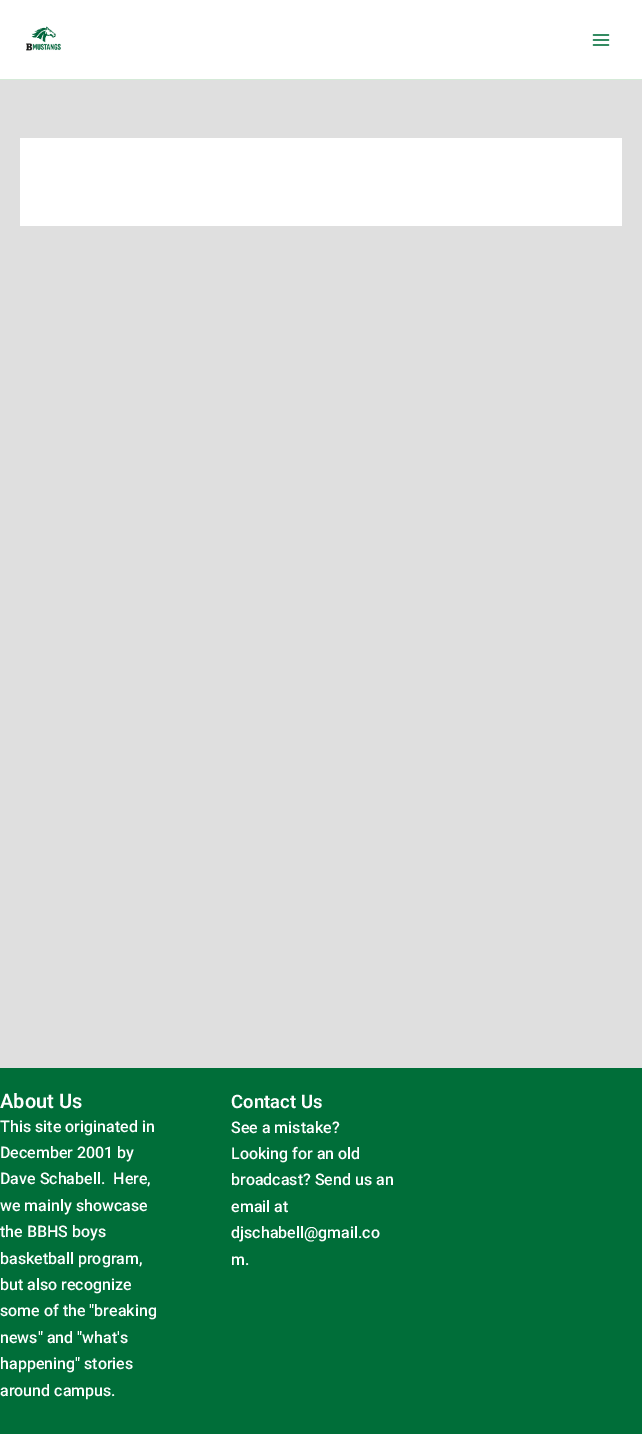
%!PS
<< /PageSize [642 1434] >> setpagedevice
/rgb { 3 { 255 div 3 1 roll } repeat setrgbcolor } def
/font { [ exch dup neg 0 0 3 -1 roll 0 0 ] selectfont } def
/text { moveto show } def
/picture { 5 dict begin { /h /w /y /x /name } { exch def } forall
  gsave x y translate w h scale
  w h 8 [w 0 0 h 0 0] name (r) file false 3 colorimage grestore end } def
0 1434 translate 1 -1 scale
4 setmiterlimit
223 223 223 rgb
0 0 642 1434 rectfill
255 255 255 rgb
0 0 642 79 rectfill
213 234 216 rgb
0 79 642 1 rectfill
(img_01.rgb) 26 26 35 25 picture
(img_02.rgb) 592 34 18 12 picture
255 255 255 rgb
20 138 602 88 rectfill
0 110 57 rgb
0 1068 642 366 rectfill
/Roboto-SemiBold 20 font
255 255 255 rgb
(About Us) 0 1108 text
/Roboto-Medium 16 font
(This site originated in) 0 1132 text
(December 2001 by) 0 1158 text
(Dave Schabell.  Here,) 0 1184 text
(we mainly showcase) 0 1211 text
(the BBHS boys) 0 1237 text
(basketball program,) 0 1264 text
(but also recognize) 0 1290 text
(some of the "breaking) 0 1316 text
(news" and "what's) 0 1343 text
(happening" stories) 0 1369 text
(around campus.) 0 1396 text
/Roboto-SemiBold 18.5 font
(Contact Us) 231 1108 text
/Roboto-Medium 16 font
(See a mistake?) 231 1133 text
(Looking for an old) 231 1159 text
(broadcast? Send us an) 231 1185 text
(email at) 231 1212 text
(djschabell@gmail.co) 231 1238 text
(m.) 231 1265 text
showpage
